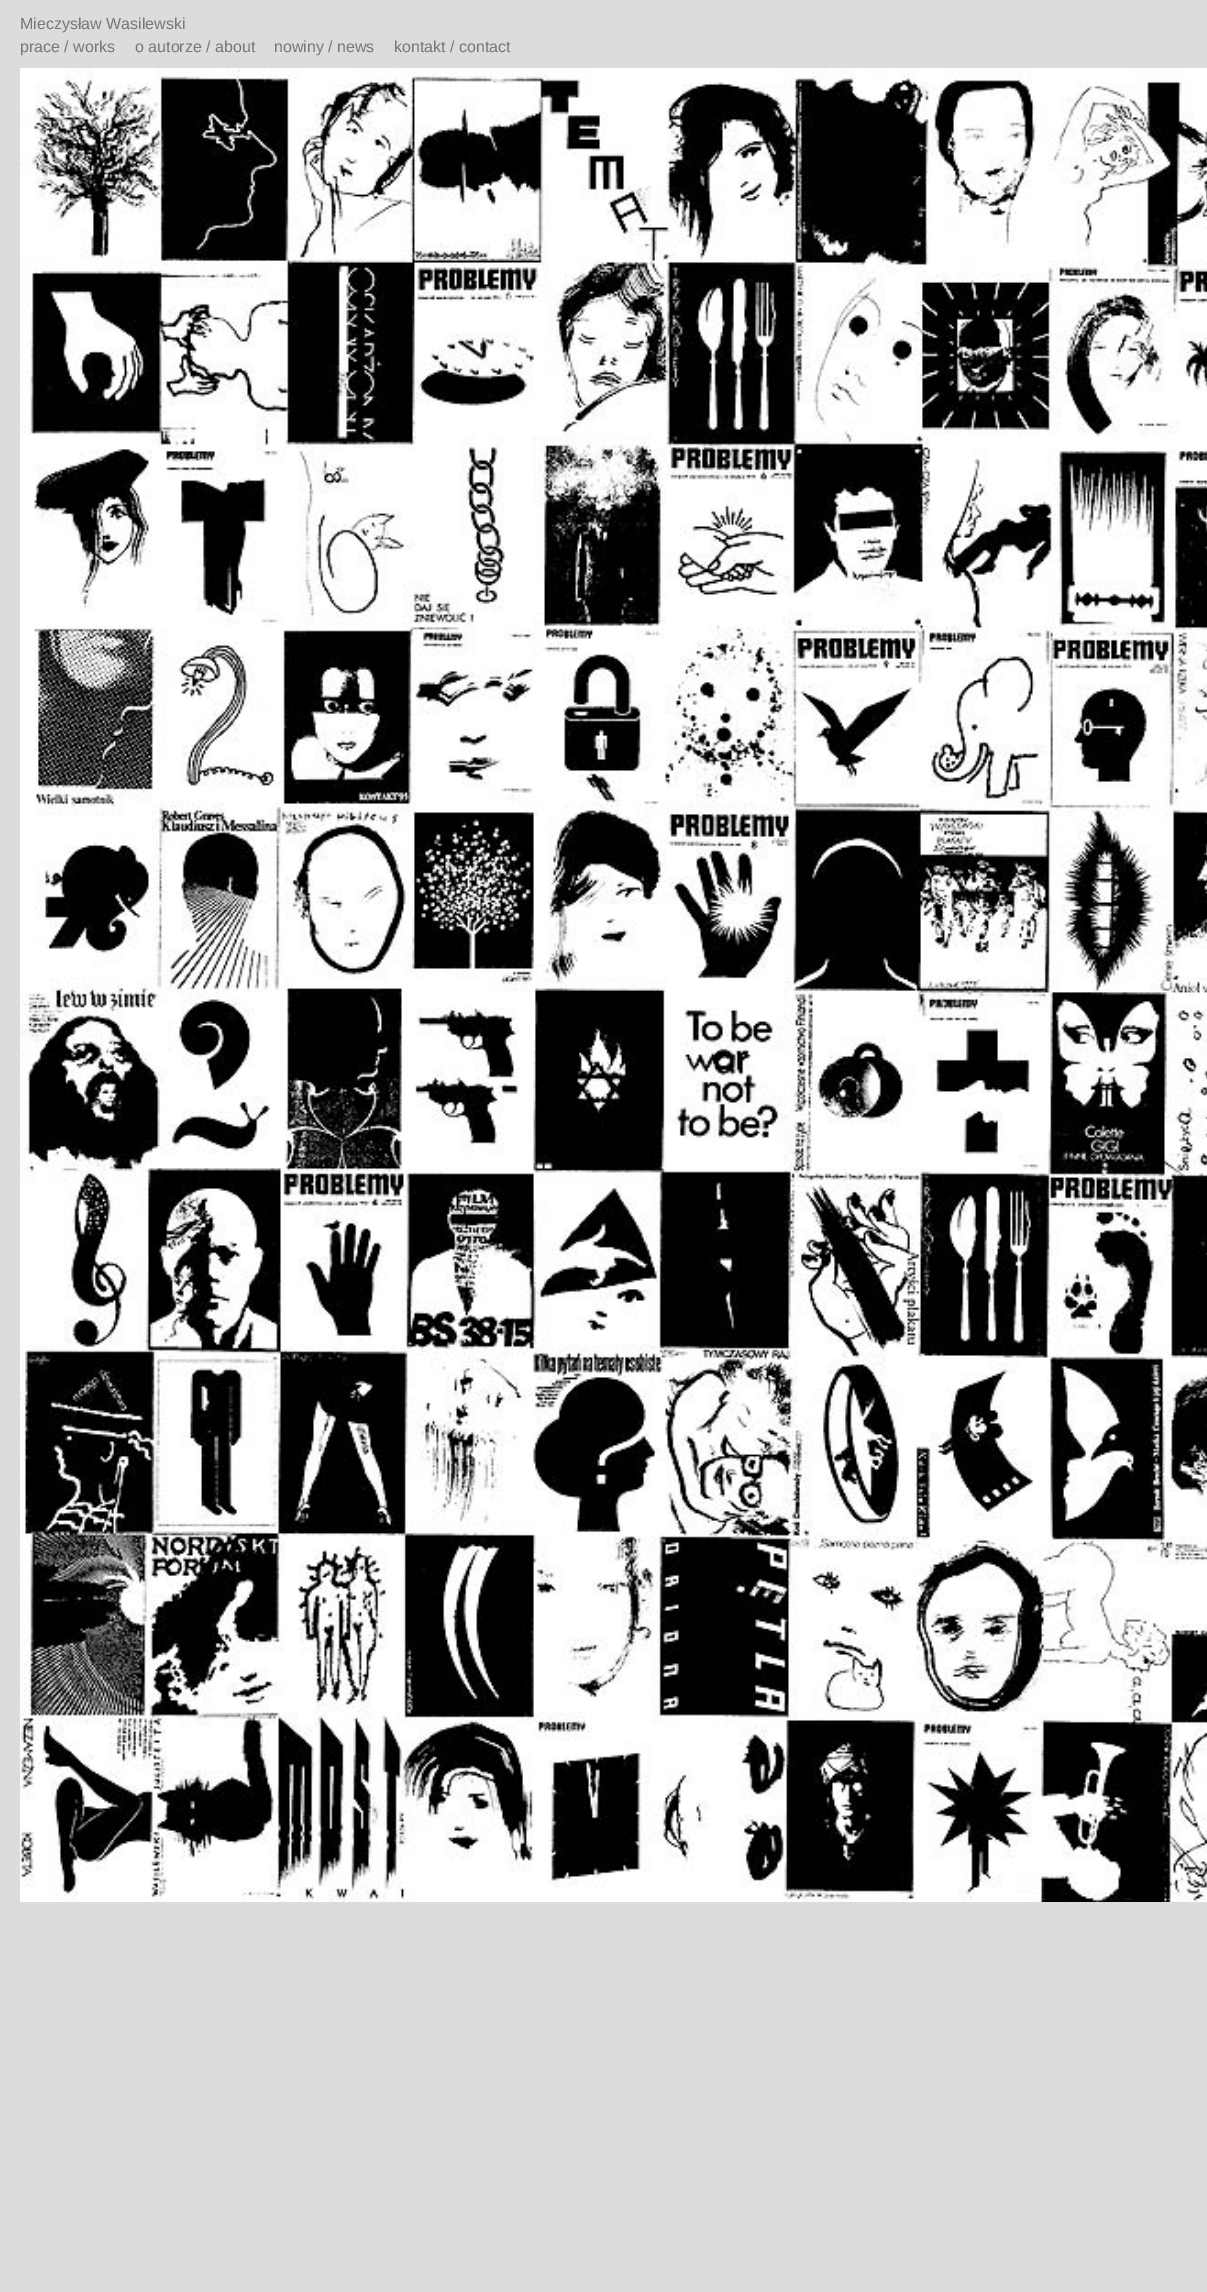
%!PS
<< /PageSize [1207 2292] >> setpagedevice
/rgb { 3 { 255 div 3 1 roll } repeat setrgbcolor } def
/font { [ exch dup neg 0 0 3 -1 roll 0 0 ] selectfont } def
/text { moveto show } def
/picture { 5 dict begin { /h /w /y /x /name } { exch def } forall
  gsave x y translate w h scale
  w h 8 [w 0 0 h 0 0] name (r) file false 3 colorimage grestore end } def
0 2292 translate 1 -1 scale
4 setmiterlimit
220 220 220 rgb
0 0 1207 2292 rectfill
(img_01.rgb) 20 68 1187 1834 picture
/LiberationSans-Regular 16 font
119 119 119 rgb
(Mieczysław Wasilewski) 20 29 text
(prace / works) 20 52 text
(o autorze / about) 135 52 text
(nowiny / news) 274 52 text
(kontakt / contact) 394 52 text
showpage
